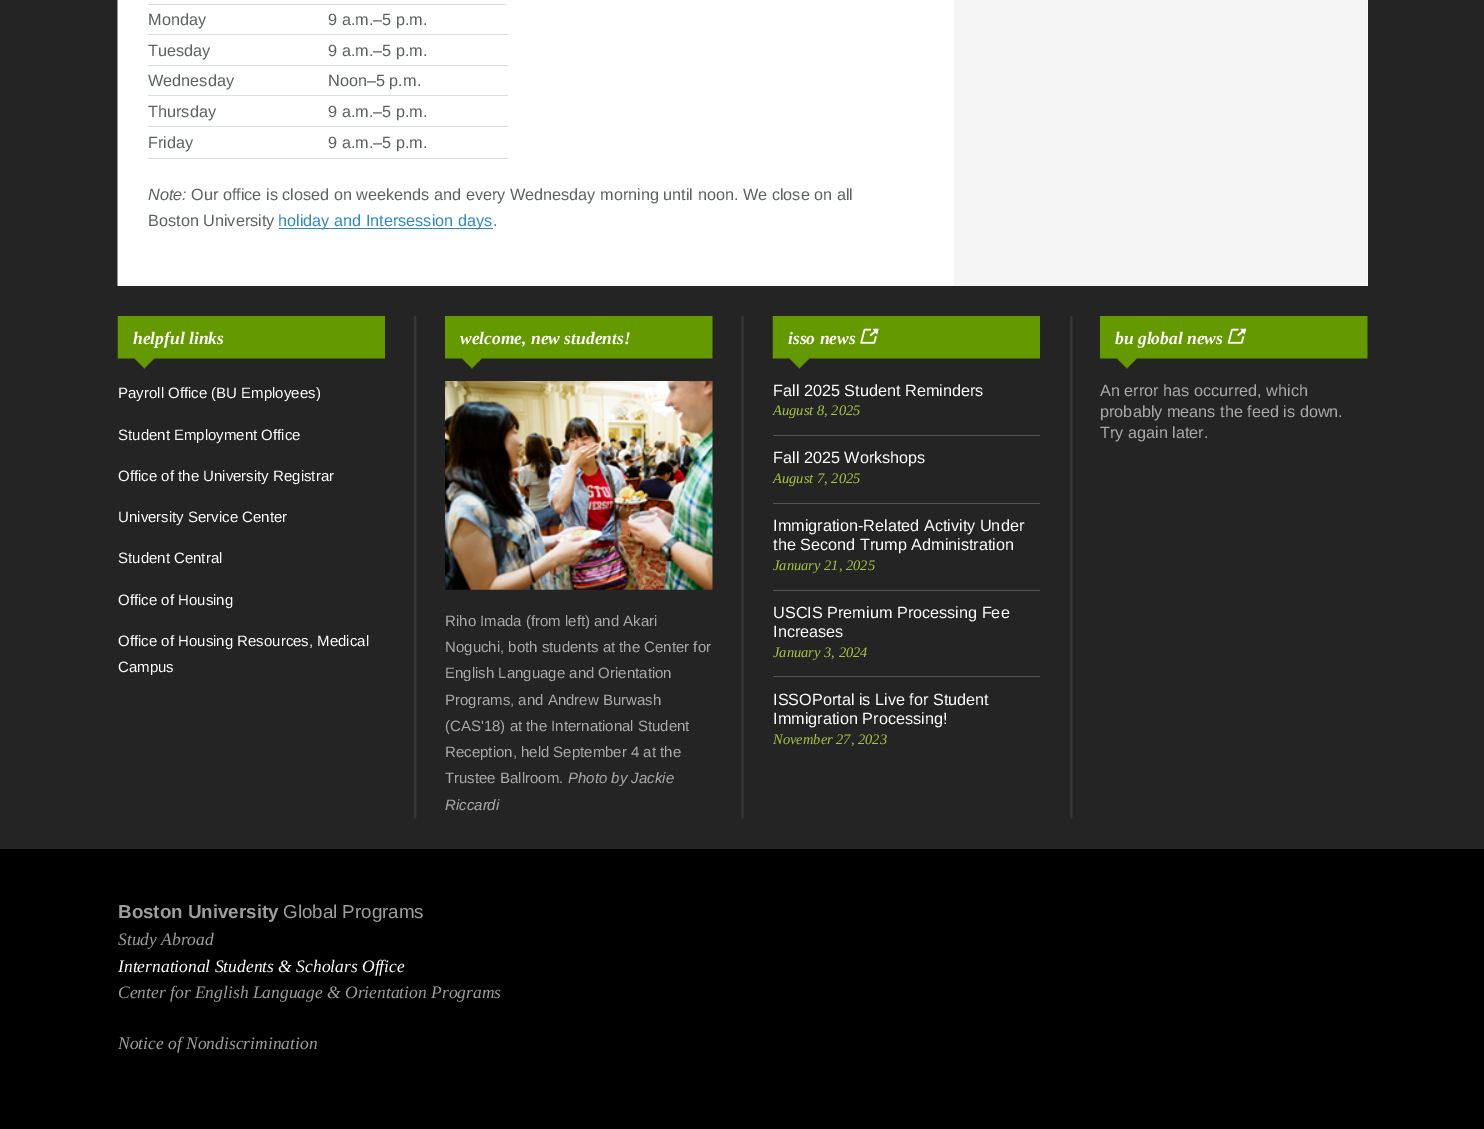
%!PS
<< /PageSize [1484 1129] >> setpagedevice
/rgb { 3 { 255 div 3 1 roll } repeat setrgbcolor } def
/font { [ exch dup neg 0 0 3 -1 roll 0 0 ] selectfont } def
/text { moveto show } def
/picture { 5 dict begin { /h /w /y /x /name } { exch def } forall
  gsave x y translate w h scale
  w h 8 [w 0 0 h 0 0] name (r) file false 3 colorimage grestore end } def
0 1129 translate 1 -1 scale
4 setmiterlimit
0 0 0 rgb
0 0 1484 1129 rectfill
36 36 36 rgb
0 0 1484 849 rectfill
255 255 255 rgb
1367 0 1 286 rectfill
(img_01.rgb) 117 0 1251 286 picture
220 223 223 rgb
148 4 358 1 rectfill
148 34 360 1 rectfill
148 65 360 1 rectfill
148 95 360 1 rectfill
148 126 360 1 rectfill
148 158 360 1 rectfill
48 137 194 rgb
279 228 214 1 rectfill
(img_02.rgb) 413 316 660 503 picture
(img_03.rgb) 117 316 268 53 picture
(img_04.rgb) 445 316 268 53 picture
(img_05.rgb) 445 381 268 209 picture
(img_06.rgb) 772 316 268 53 picture
(img_07.rgb) 860 328 19 16 picture
85 85 85 rgb
773 435 267 1 rectfill
773 503 267 1 rectfill
773 590 267 1 rectfill
773 676 267 1 rectfill
(img_04.rgb) 1100 316 268 53 picture
(img_08.rgb) 1227 328 20 16 picture
/LiberationSans-Regular 16.25 font
91 98 102 rgb
(Monday) 148 25 text
(9 a.m.–5 p.m.) 328 25 text
(Tuesday) 148 56 text
(9 a.m.–5 p.m.) 328 56 text
(Wednesday) 148 86 text
(Noon–5 p.m.) 328 86 text
(Thursday) 148 117 text
(9 a.m.–5 p.m.) 328 117 text
(Friday) 148 148 text
(9 a.m.–5 p.m.) 328 148 text
/LiberationSans-Italic 16.25 font
(Note:) 148 200 text
/LiberationSans-Regular 16.25 font
(Our office is closed on weekends and every Wednesday morning until noon. We close on all) 191 200 text
(Boston University) 148 226 text
48 137 194 rgb
(holiday and Intersession days) 278 226 text
91 98 102 rgb
(.) 493 226 text
/LiberationSerif-BoldItalic 17.5 font
255 255 255 rgb
(helpful links) 133 344 text
/LiberationSans-Regular 15 font
(Payroll Office \(BU Employees\)) 118 398 text
(Student Employment Office) 118 440 text
(Office of the University Registrar) 118 481 text
(University Service Center) 118 522 text
(Student Central) 118 563 text
(Office of Housing) 118 605 text
(Office of Housing Resources, Medical) 118 646 text
(Campus) 118 672 text
/LiberationSerif-BoldItalic 17.5 font
(welcome, new students!) 460 344 text
/LiberationSans-Regular 15 font
170 170 170 rgb
(Riho Imada \(from left\) and Akari) 445 626 text
(Noguchi, both students at the Center for) 445 652 text
(English Language and Orientation) 445 678 text
(Programs, and Andrew Burwash) 445 705 text
(\(CAS'18\) at the International Student) 445 731 text
(Reception, held September 4 at the) 445 757 text
(Trustee Ballroom.) 445 783 text
/LiberationSans-Italic 15 font
(Photo by Jackie) 568 783 text
(Riccardi) 445 810 text
/LiberationSerif-BoldItalic 17.5 font
255 255 255 rgb
(isso news) 788 344 text
/LiberationSans-Regular 16.25 font
(Fall 2025 Student Reminders) 773 396 text
/LiberationSerif-Italic 14.5 font
164 199 67 rgb
(August 8, 2025) 773 415 text
/LiberationSans-Regular 16.25 font
255 255 255 rgb
(Fall 2025 Workshops) 773 463 text
/LiberationSerif-Italic 14.5 font
164 199 67 rgb
(August 7, 2025) 773 483 text
/LiberationSans-Regular 16.25 font
255 255 255 rgb
(Immigration-Related Activity Under) 773 531 text
(the Second Trump Administration) 773 550 text
/LiberationSerif-Italic 14.5 font
164 199 67 rgb
(January 21, 2025) 773 570 text
/LiberationSans-Regular 16.25 font
255 255 255 rgb
(USCIS Premium Processing Fee) 773 618 text
(Increases) 773 637 text
/LiberationSerif-Italic 14.5 font
164 199 67 rgb
(January 3, 2024) 773 657 text
/LiberationSans-Regular 16.25 font
255 255 255 rgb
(ISSOPortal is Live for Student) 773 705 text
(Immigration Processing!) 773 724 text
/LiberationSerif-Italic 14.5 font
164 199 67 rgb
(November 27, 2023) 773 744 text
/LiberationSerif-BoldItalic 17.5 font
255 255 255 rgb
(bu global news) 1115 344 text
/LiberationSans-Regular 16.25 font
170 170 170 rgb
(An error has occurred, which) 1100 396 text
(probably means the feed is down.) 1100 417 text
(Try again later.) 1100 438 text
/LiberationSans-Bold 18.75 font
157 157 157 rgb
(Boston University) 118 918 text
/LiberationSans-Regular 18.75 font
(Global Programs) 283 918 text
/LiberationSerif-Italic 17.5 font
(Study Abroad) 118 945 text
255 255 255 rgb
(International Students & Scholars Office) 118 972 text
157 157 157 rgb
(Center for English Language & Orientation Programs) 118 998 text
(Notice of Nondiscrimination) 118 1049 text
showpage
